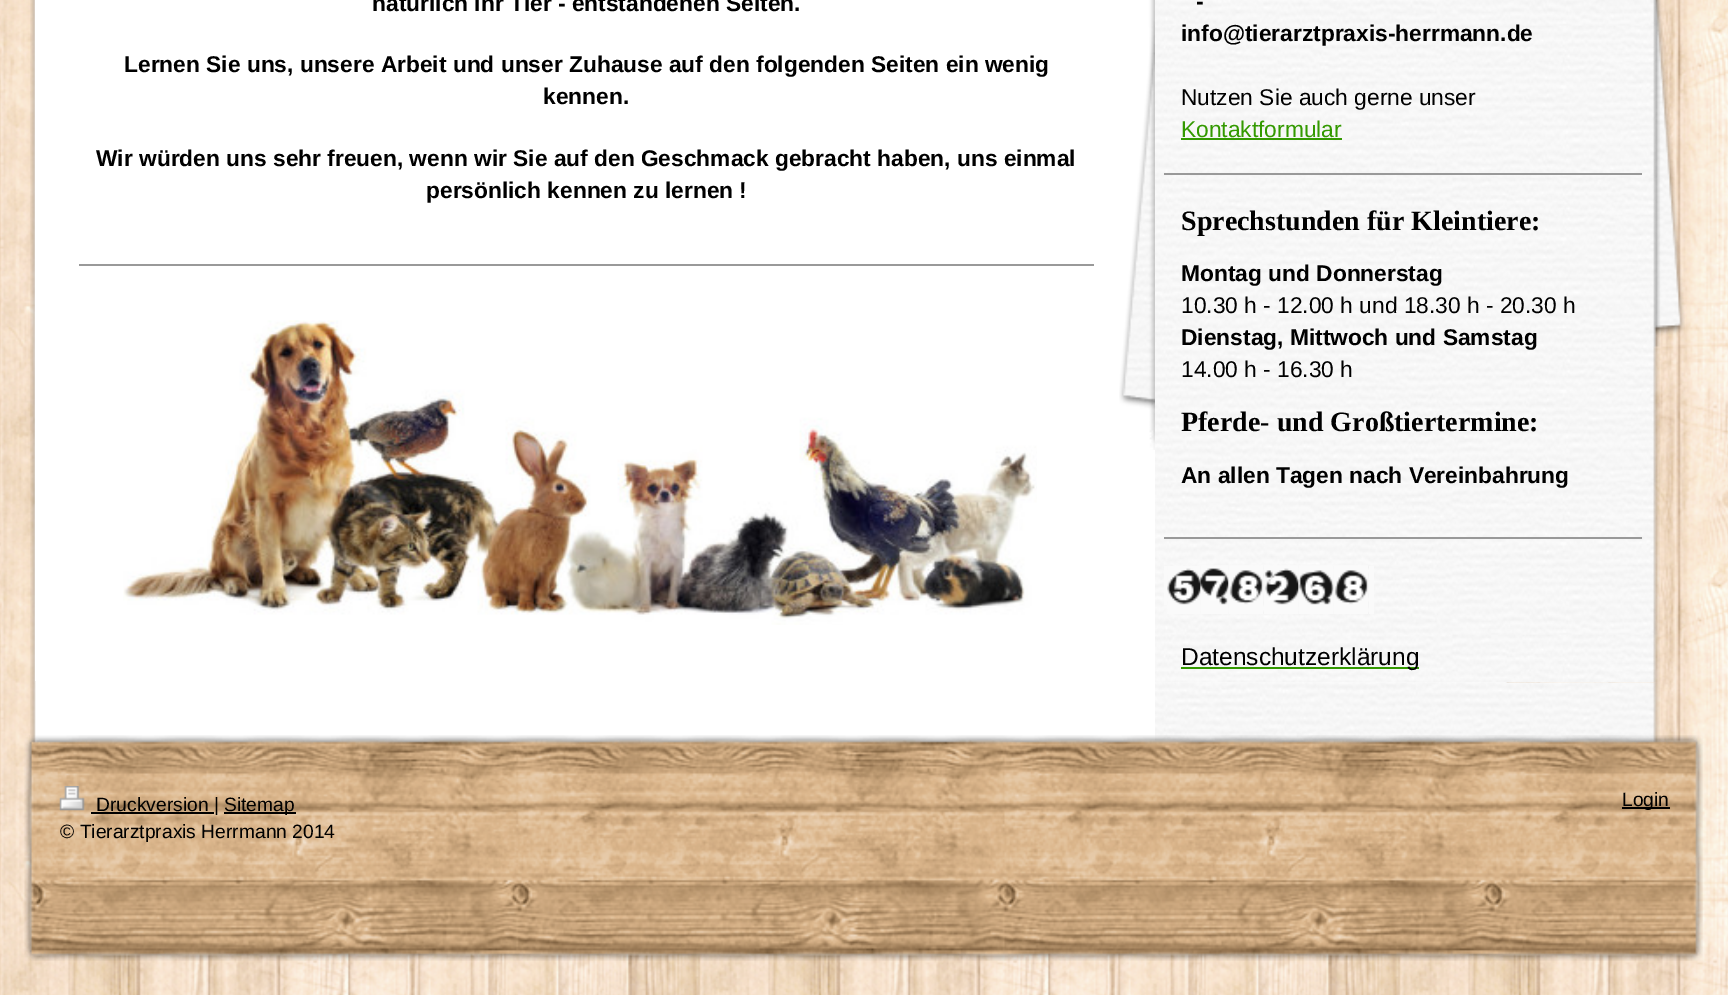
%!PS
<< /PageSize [1728 995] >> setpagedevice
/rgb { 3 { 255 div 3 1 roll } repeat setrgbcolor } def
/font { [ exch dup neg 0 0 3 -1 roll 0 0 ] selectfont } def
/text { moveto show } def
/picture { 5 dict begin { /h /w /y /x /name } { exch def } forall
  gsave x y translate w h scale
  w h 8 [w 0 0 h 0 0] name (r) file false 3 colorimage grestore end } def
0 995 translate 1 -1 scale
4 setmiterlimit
255 255 255 rgb
0 0 1728 995 rectfill
(img_01.rgb) 0 0 1728 995 picture
(img_02.rgb) 30 0 1481 768 picture
35 0 1 681 rectfill
(img_03.rgb) 1119 0 36 450 picture
153 153 153 rgb
79 264 1015 2 rectfill
(img_04.rgb) 123 320 914 305 picture
(img_05.rgb) 1653 0 32 347 picture
(img_06.rgb) 1155 0 505 683 picture
51 153 0 rgb
1181 138 161 2 rectfill
153 153 153 rgb
1164 173 478 2 rectfill
1164 537 478 2 rectfill
250 250 250 rgb
1164 566 3 39 rectfill
(img_07.rgb) 1167 566 34 48 picture
(img_08.rgb) 1200 565 29 49 picture
(img_09.rgb) 1228 565 35 49 picture
(img_10.rgb) 1264 565 35 49 picture
(img_11.rgb) 1298 565 36 49 picture
(img_12.rgb) 1333 565 35 49 picture
1369 566 5 48 rectfill
51 153 0 rgb
1181 667 238 2 rectfill
(img_13.rgb) 1155 682 505 61 picture
(img_14.rgb) 24 735 1679 226 picture
(img_15.rgb) 59 786 26 25 picture
0 0 0 rgb
91 812 123 2 rectfill
224 812 72 2 rectfill
1622 807 48 2 rectfill
/LiberationSans-Bold 22.75 font
(natürlich Ihr Tier - entstandenen Seiten.) 372 11 text
(Lernen Sie uns, unsere Arbeit und unser Zuhause auf den folgenden Seiten ein wenig) 124 72 text
(kennen.) 543 104 text
(Wir würden uns sehr freuen, wenn wir Sie auf den Geschmack gebracht haben, uns einmal) 96 166 text
(persönlich kennen zu lernen !) 426 198 text
(-) 1196 9 text
(info@tierarztpraxis-herrmann.de) 1181 41 text
/LiberationSans-Regular 22.75 font
(Nutzen Sie auch gerne unser) 1181 105 text
51 153 0 rgb
(Kontaktformular) 1181 137 text
/LiberationSerif-Bold 28 font
0 0 0 rgb
(Sprechstunden für Kleintiere:) 1181 230 text
/LiberationSans-Bold 22.75 font
(Montag und Donnerstag) 1181 281 text
/LiberationSans-Regular 22.75 font
(10.30 h - 12.00 h und 18.30 h - 20.30 h) 1181 313 text
/LiberationSans-Bold 22.75 font
(Dienstag, Mittwoch und Samstag) 1181 345 text
/LiberationSans-Regular 22.75 font
(14.00 h - 16.30 h) 1181 377 text
/LiberationSerif-Bold 28 font
(Pferde- und Großtiertermine:) 1181 431 text
/LiberationSans-Bold 22.75 font
(An allen Tagen nach Vereinbahrung) 1181 483 text
/LiberationSans-Regular 24.5 font
(Datenschutzerklärung) 1181 665 text
/LiberationSans-Regular 19.25 font
(Druckversion |) 96 811 text
(Sitemap) 224 811 text
gsave
60 786 1610 59 rectclip
(© Tierarztpraxis Herrmann 2014) 60 838 text
grestore
(Login) 1622 806 text
showpage
